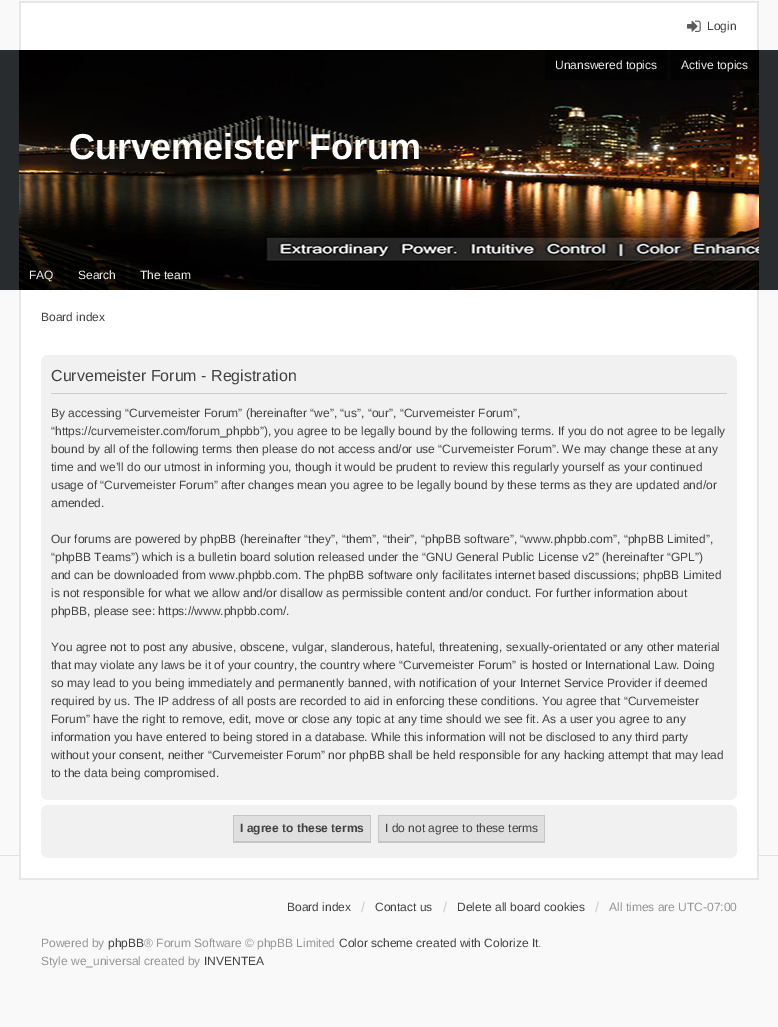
%!PS
<< /PageSize [778 1027] /PageUsesTransparency true >> setpagedevice
/rgb { 3 { 255 div 3 1 roll } repeat setrgbcolor } def
/font { [ exch dup neg 0 0 3 -1 roll 0 0 ] selectfont } def
/text { moveto show } def
/alpha { dup .setfillconstantalpha .setstrokeconstantalpha } def
/roundrect { 5 dict begin { /r /h /w /y /x } { exch def } forall
  x r add y moveto x w add y 2 copy h add r arct x w add y h add x 1 index r arct
  x y h add x y r arct x y 2 copy exch w add exch r arct closepath end } def
/picture { 5 dict begin { /h /w /y /x /name } { exch def } forall
  gsave x y translate w h scale
  w h 8 [w 0 0 h 0 0] name (r) file false 3 colorimage grestore end } def
0 .pushpdf14devicefilter
0 1027 translate 1 -1 scale
4 setmiterlimit
249 249 249 rgb
0 0 778 1027 rectfill
255 255 255 rgb
21 3 736 47 rectfill
231 231 231 rgb
19 1 740 2 rectfill
757 1 2 49 rectfill
19 1 2 49 rectfill
(img_01.rgb) 687 20 14 12 picture
41 44 47 rgb
0 50 778 240 rectfill
(img_02.rgb) 19 50 740 240 picture
0.5 alpha
0 0 0 rgb
545 50 122 30 rectfill
671 50 88 30 rectfill
19 260 45 30 rectfill
68 260 58 30 rectfill
130 261 71 29 rectfill
1 alpha
226 226 226 rgb
0 855 778 1 rectfill
255 255 255 rgb
21 290 736 588 rectfill
231 231 231 rgb
757 290 2 590 rectfill
19 878 740 2 rectfill
19 290 2 590 rectfill
241 241 241 rgb
41 355 696 445 7 roundrect fill
204 204 204 rgb
51 393 676 1 rectfill
241 241 241 rgb
41 805 696 53 7 roundrect fill
223 223 223 rgb
234 816 136 25 rectfill
197 197 197 rgb
233 815 138 1 rectfill
370 815 1 28 rectfill
233 841 138 2 rectfill
233 815 1 28 rectfill
223 223 223 rgb
379 816 165 25 rectfill
197 197 197 rgb
378 815 167 1 rectfill
544 815 1 28 rectfill
378 841 167 2 rectfill
378 815 1 28 rectfill
/LiberationSans-Regular 12 font
65 65 65 rgb
(Login) 707 30 text
238 238 238 rgb
(Unanswered topics) 555 69 text
(Active topics) 681 69 text
(FAQ) 29 279 text
(Search) 78 279 text
(The team) 140 279 text
/LiberationSans-Bold 36 font
255 255 255 rgb
(Curvemeister Forum) 69 159 text
/LiberationSans-Regular 12 font
65 65 65 rgb
(Board index) 41 321 text
/LiberationSans-Regular 16 font
(Curvemeister Forum - Registration) 51 381 text
/LiberationSans-Regular 12 font
(By accessing “Curvemeister Forum” \(hereinafter “we”, “us”, “our”, “Curvemeister Forum”,) 51 417 text
(“https://curvemeister.com/forum_phpbb”\), you agree to be legally bound by the following terms. If you do not agree to be legally) 51 435 text
(bound by all of the following terms then please do not access and/or use “Curvemeister Forum”. We may change these at any) 51 453 text
(time and we’ll do our utmost in informing you, though it would be prudent to review this regularly yourself as your continued) 51 471 text
(usage of “Curvemeister Forum” after changes mean you agree to be legally bound by these terms as they are updated and/or) 51 489 text
(amended.) 51 507 text
(Our forums are powered by phpBB \(hereinafter “they”, “them”, “their”, “phpBB software”, “www.phpbb.com”, “phpBB Limited”,) 51 543 text
(“phpBB Teams”\) which is a bulletin board solution released under the “GNU General Public License v2” \(hereinafter “GPL”\)) 51 561 text
(and can be downloaded from www.phpbb.com. The phpBB software only facilitates internet based discussions; phpBB Limited) 51 579 text
(is not responsible for what we allow and/or disallow as permissible content and/or conduct. For further information about) 51 597 text
(phpBB, please see: https://www.phpbb.com/.) 51 615 text
(You agree not to post any abusive, obscene, vulgar, slanderous, hateful, threatening, sexually-orientated or any other material) 51 651 text
(that may violate any laws be it of your country, the country where “Curvemeister Forum” is hosted or International Law. Doing) 51 669 text
(so may lead to you being immediately and permanently banned, with notification of your Internet Service Provider if deemed) 51 687 text
(required by us. The IP address of all posts are recorded to aid in enforcing these conditions. You agree that “Curvemeister) 51 705 text
(Forum” have the right to remove, edit, move or close any topic at any time should we see fit. As a user you agree to any) 51 723 text
(information you have entered to being stored in a database. While this information will not be disclosed to any third party) 51 741 text
(without your consent, neither “Curvemeister Forum” nor phpBB shall be held responsible for any hacking attempt that may lead) 51 759 text
(to the data being compromised.) 51 777 text
/LiberationSans-Bold 12 font
(I agree to these terms) 240 832 text
/LiberationSans-Regular 12 font
(I do not agree to these terms) 385 832 text
(Board index) 287 911 text
/LiberationSans-Regular 14 font
202 202 202 rgb
(/) 361 912 text
/LiberationSans-Regular 12 font
65 65 65 rgb
(Contact us) 375 911 text
/LiberationSans-Regular 14 font
202 202 202 rgb
(/) 443 912 text
/LiberationSans-Regular 12 font
65 65 65 rgb
(Delete all board cookies) 457 911 text
/LiberationSans-Regular 14 font
202 202 202 rgb
(/) 595 912 text
/LiberationSans-Regular 12 font
149 149 149 rgb
(All times are UTC-07:00) 609 911 text
(Powered by) 41 947 text
65 65 65 rgb
(phpBB) 108 947 text
149 149 149 rgb
(® Forum Software © phpBB Limited) 144 947 text
65 65 65 rgb
(Color scheme created with Colorize It) 339 947 text
149 149 149 rgb
(.) 538 947 text
(Style we_universal created by) 41 965 text
65 65 65 rgb
(INVENTEA) 204 965 text
.poppdf14devicefilter showpage
